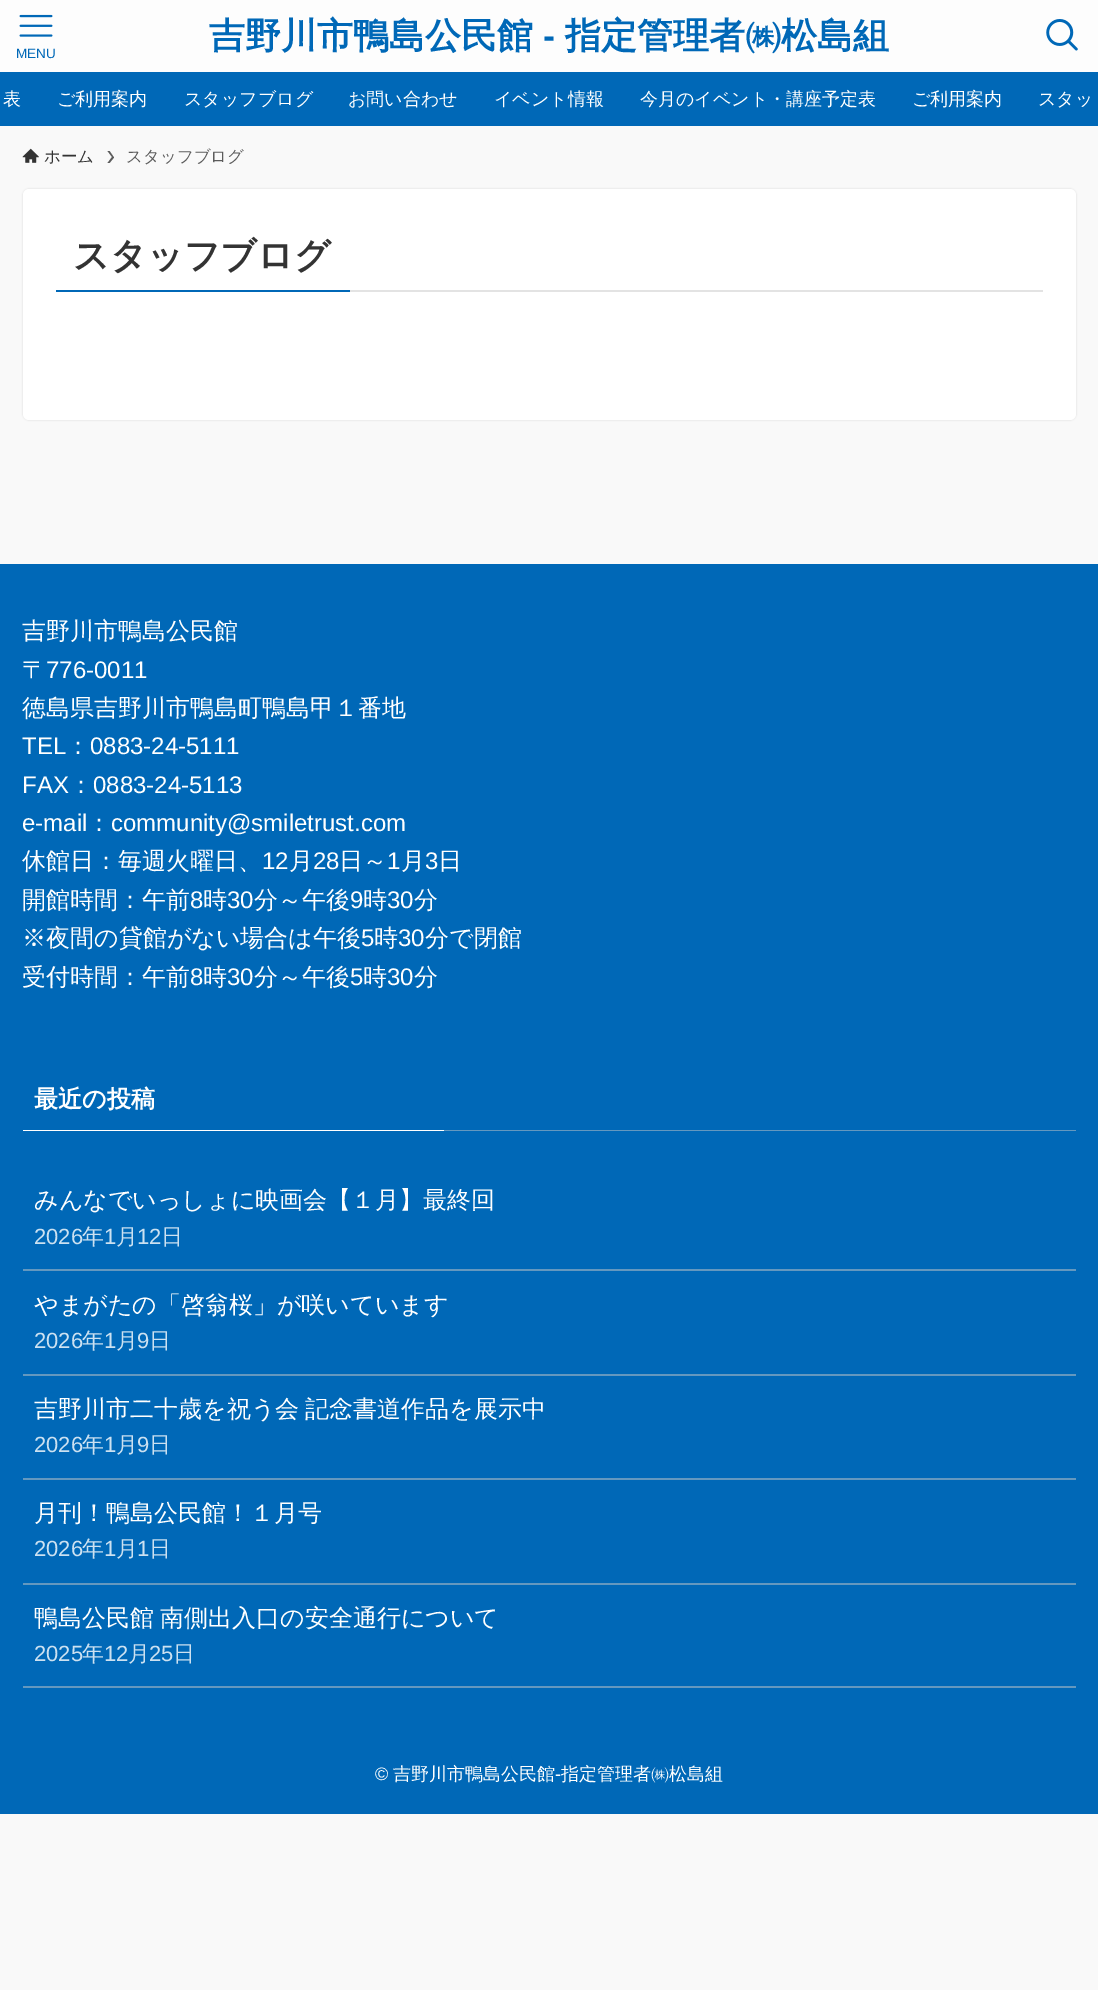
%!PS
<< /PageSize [1098 1990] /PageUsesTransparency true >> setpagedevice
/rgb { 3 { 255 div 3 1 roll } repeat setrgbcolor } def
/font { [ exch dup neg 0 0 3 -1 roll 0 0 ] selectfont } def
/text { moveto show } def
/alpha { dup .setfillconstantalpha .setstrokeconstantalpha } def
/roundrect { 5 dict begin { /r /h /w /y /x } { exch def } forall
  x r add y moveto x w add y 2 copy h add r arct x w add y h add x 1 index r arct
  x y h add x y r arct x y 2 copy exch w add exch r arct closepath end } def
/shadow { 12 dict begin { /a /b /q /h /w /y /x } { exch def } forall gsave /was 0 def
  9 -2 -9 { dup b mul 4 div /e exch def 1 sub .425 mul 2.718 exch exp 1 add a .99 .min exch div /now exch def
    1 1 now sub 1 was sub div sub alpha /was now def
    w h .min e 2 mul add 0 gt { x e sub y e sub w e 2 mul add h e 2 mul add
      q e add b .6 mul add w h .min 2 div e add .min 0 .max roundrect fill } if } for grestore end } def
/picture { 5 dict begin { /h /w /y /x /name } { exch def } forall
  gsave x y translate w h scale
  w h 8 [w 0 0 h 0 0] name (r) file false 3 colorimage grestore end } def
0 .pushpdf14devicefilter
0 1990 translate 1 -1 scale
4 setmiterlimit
249 249 249 rgb
0 0 1098 1990 rectfill
253 253 253 rgb
0 0 1098 72 rectfill
(img_01.rgb) 1046 19 32 32 picture
(img_02.rgb) 19 14 34 23 picture
0 104 183 rgb
0 72 1098 54 rectfill
(img_03.rgb) 22 148 17 15 picture
91 91 91 rgb
109.5 151 moveto -2 0 rlineto 4.5 6 rlineto -4.5 6 rlineto 2 0 rlineto 4.5 -5.5 rlineto closepath fill
0 0 0 rgb
23 189 1053 231 6 1 0.12 shadow
255 255 255 rgb
23 189 1053 231 6 roundrect fill
227 227 227 rgb
350 290 693 2 rectfill
0 104 183 rgb
56 290 294 2 rectfill
0 564 1098 1250 rectfill
255 255 255 rgb
23 1130 421 1 rectfill
100 152 191 rgb
444 1130 632 1 rectfill
23 1269 1053 2 rectfill
23 1374 1053 2 rectfill
23 1478 1053 2 rectfill
23 1583 1053 2 rectfill
23 1686 1053 2 rectfill
/WenQuanYiZenHei-Bold 36 font
0 104 183 rgb
(吉野川市鴨島公民館) 209 48 text
/LiberationSans-Bold 36 font
(-) 543 48 text
/WenQuanYiZenHei-Bold 36 font
(指定管理者㈱松島組) 565 48 text
/LiberationSans-Regular 13.5 font
(MENU) 16 58 text
/WenQuanYiZenHei-Medium 18 font
255 255 255 rgb
(表) 3 105 text
(ご利用案内) 57 105 text
(スタッフブログ) 184 105 text
(お問い合わせ) 348 105 text
(イベント情報) 494 105 text
(今月のイベント・講座予定表) 640 105 text
(ご利用案内) 912 105 text
(スタッ) 1038 105 text
/WenQuanYiZenHei-Medium 16.5 font
51 51 51 rgb
(ホーム) 44 162 text
91 91 91 rgb
(スタッフブログ) 126 162 text
/WenQuanYiZenHei-Bold 36 font
51 51 51 rgb
(スタッフブログ) 73 268 text
/WenQuanYiZenHei-Medium 24 font
255 255 255 rgb
(吉野川市鴨島公民館) 22 639 text
(〒) 22 678 text
/LiberationSans-Regular 24 font
(776-0011) 46 678 text
/WenQuanYiZenHei-Medium 24 font
(徳島県吉野川市鴨島町鴨島甲１番地) 22 716 text
/LiberationSans-Regular 24 font
(TEL) 22 754 text
/WenQuanYiZenHei-Medium 24 font
(：) 66 754 text
/LiberationSans-Regular 24 font
(0883-24-5111) 90 754 text
(FAX) 22 793 text
/WenQuanYiZenHei-Medium 24 font
(：) 69 793 text
/LiberationSans-Regular 24 font
(0883-24-5113) 93 793 text
(e-mail) 22 831 text
/WenQuanYiZenHei-Medium 24 font
(：) 87 831 text
/LiberationSans-Regular 24 font
(community@smiletrust.com) 111 831 text
/WenQuanYiZenHei-Medium 24 font
(休館日：毎週火曜日、) 22 869 text
/LiberationSans-Regular 24 font
(12) 262 869 text
/WenQuanYiZenHei-Medium 24 font
(月) 289 869 text
/LiberationSans-Regular 24 font
(28) 313 869 text
/WenQuanYiZenHei-Medium 24 font
(日～) 339 869 text
/LiberationSans-Regular 24 font
(1) 387 869 text
/WenQuanYiZenHei-Medium 24 font
(月) 401 869 text
/LiberationSans-Regular 24 font
(3) 425 869 text
/WenQuanYiZenHei-Medium 24 font
(日) 438 869 text
(開館時間：午前) 22 908 text
/LiberationSans-Regular 24 font
(8) 190 908 text
/WenQuanYiZenHei-Medium 24 font
(時) 203 908 text
/LiberationSans-Regular 24 font
(30) 227 908 text
/WenQuanYiZenHei-Medium 24 font
(分～午後) 254 908 text
/LiberationSans-Regular 24 font
(9) 350 908 text
/WenQuanYiZenHei-Medium 24 font
(時) 363 908 text
/LiberationSans-Regular 24 font
(30) 387 908 text
/WenQuanYiZenHei-Medium 24 font
(分) 414 908 text
(※夜間の貸館がない場合は午後) 22 946 text
/LiberationSans-Regular 24 font
(5) 361 946 text
/WenQuanYiZenHei-Medium 24 font
(時) 374 946 text
/LiberationSans-Regular 24 font
(30) 398 946 text
/WenQuanYiZenHei-Medium 24 font
(分で閉館) 425 946 text
(受付時間：午前) 22 985 text
/LiberationSans-Regular 24 font
(8) 190 985 text
/WenQuanYiZenHei-Medium 24 font
(時) 203 985 text
/LiberationSans-Regular 24 font
(30) 227 985 text
/WenQuanYiZenHei-Medium 24 font
(分～午後) 254 985 text
/LiberationSans-Regular 24 font
(5) 350 985 text
/WenQuanYiZenHei-Medium 24 font
(時) 363 985 text
/LiberationSans-Regular 24 font
(30) 387 985 text
/WenQuanYiZenHei-Medium 24 font
(分) 414 985 text
/WenQuanYiZenHei-Bold 24 font
(最近の投稿) 34 1107 text
/WenQuanYiZenHei-Medium 24 font
(みんなでいっしょに映画会【１月】最終回) 34 1208 text
/LiberationSans-Regular 22 font
204 225 241 rgb
(2026) 34 1244 text
/WenQuanYiZenHei-Medium 22 font
(年) 82 1244 text
/LiberationSans-Regular 22 font
(1) 104 1244 text
/WenQuanYiZenHei-Medium 22 font
(月) 116 1244 text
/LiberationSans-Regular 22 font
(12) 137 1244 text
/WenQuanYiZenHei-Medium 22 font
(日) 161 1244 text
/WenQuanYiZenHei-Medium 24 font
255 255 255 rgb
(やまがたの「啓翁桜」が咲いています) 34 1313 text
/LiberationSans-Regular 22 font
204 225 241 rgb
(2026) 34 1348 text
/WenQuanYiZenHei-Medium 22 font
(年) 82 1348 text
/LiberationSans-Regular 22 font
(1) 104 1348 text
/WenQuanYiZenHei-Medium 22 font
(月) 116 1348 text
/LiberationSans-Regular 22 font
(9) 137 1348 text
/WenQuanYiZenHei-Medium 22 font
(日) 149 1348 text
/WenQuanYiZenHei-Medium 24 font
255 255 255 rgb
34 1417 moveto -1 0 32 (吉野川市二十歳を祝う会 記念書道作品を展示中) widthshow
/LiberationSans-Regular 22 font
204 225 241 rgb
(2026) 34 1452 text
/WenQuanYiZenHei-Medium 22 font
(年) 82 1452 text
/LiberationSans-Regular 22 font
(1) 104 1452 text
/WenQuanYiZenHei-Medium 22 font
(月) 116 1452 text
/LiberationSans-Regular 22 font
(9) 137 1452 text
/WenQuanYiZenHei-Medium 22 font
(日) 149 1452 text
/WenQuanYiZenHei-Medium 24 font
255 255 255 rgb
(月刊！鴨島公民館！１月号) 34 1521 text
/LiberationSans-Regular 22 font
204 225 241 rgb
(2026) 34 1556 text
/WenQuanYiZenHei-Medium 22 font
(年) 82 1556 text
/LiberationSans-Regular 22 font
(1) 104 1556 text
/WenQuanYiZenHei-Medium 22 font
(月) 116 1556 text
/LiberationSans-Regular 22 font
(1) 137 1556 text
/WenQuanYiZenHei-Medium 22 font
(日) 149 1556 text
/WenQuanYiZenHei-Medium 24 font
255 255 255 rgb
34 1626 moveto -1 0 32 (鴨島公民館 南側出入口の安全通行について) widthshow
/LiberationSans-Regular 22 font
204 225 241 rgb
(2025) 34 1661 text
/WenQuanYiZenHei-Medium 22 font
(年) 82 1661 text
/LiberationSans-Regular 22 font
(12) 104 1661 text
/WenQuanYiZenHei-Medium 22 font
(月) 128 1661 text
/LiberationSans-Regular 22 font
(25) 149 1661 text
/WenQuanYiZenHei-Medium 22 font
(日) 173 1661 text
/LiberationSans-Regular 18 font
255 255 255 rgb
(©) 375 1780 text
/WenQuanYiZenHei-Medium 18 font
(吉野川市鴨島公民館) 393 1780 text
/LiberationSans-Regular 18 font
(-) 555 1780 text
/WenQuanYiZenHei-Medium 18 font
(指定管理者㈱松島組) 561 1780 text
.poppdf14devicefilter showpage
